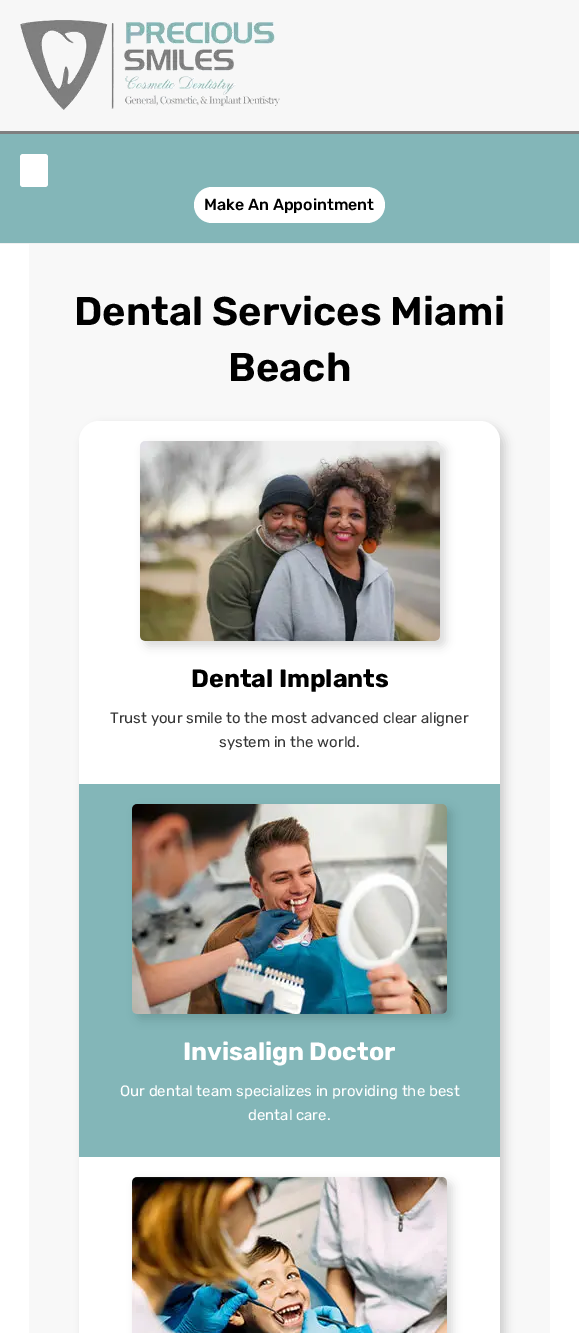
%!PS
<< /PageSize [579 1333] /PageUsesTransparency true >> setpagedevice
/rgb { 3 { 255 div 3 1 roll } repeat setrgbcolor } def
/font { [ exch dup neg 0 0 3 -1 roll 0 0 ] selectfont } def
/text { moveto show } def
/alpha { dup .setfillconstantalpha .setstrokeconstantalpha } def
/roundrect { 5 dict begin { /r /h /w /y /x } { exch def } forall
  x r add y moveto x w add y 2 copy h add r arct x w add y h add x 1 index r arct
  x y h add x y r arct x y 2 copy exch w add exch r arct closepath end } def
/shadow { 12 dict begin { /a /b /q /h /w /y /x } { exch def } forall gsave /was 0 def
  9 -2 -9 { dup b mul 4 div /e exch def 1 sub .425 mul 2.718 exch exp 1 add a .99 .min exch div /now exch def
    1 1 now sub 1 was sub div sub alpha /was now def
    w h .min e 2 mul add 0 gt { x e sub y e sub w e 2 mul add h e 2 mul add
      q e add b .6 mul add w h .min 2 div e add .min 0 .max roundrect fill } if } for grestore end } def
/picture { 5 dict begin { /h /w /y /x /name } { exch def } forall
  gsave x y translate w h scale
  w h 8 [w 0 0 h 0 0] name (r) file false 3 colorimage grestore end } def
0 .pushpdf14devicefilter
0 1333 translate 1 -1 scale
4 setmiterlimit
255 255 255 rgb
0 0 579 1333 rectfill
241 241 241 rgb
0 243 579 1 rectfill
247 247 247 rgb
0 0 579 131 rectfill
(img_01.rgb) 20 20 260 90 picture
131 182 184 rgb
0 134 579 109 rectfill
127 127 127 rgb
0 131 579 3 rectfill
255 255 255 rgb
20 154 28 33 3 roundrect fill
194 187 191 36 18 roundrect fill
248 248 248 rgb
29 244 521 1089 rectfill
0 0 0 rgb
84 426 421 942 20 5 0.17 shadow
255 255 255 rgb
79 421 421 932 20 roundrect fill
0 0 0 rgb
145 446 300 200 5 5 0.15 shadow
(img_02.rgb) 140 441 300 200 picture
131 182 184 rgb
79 784 421 373 rectfill
0 0 0 rgb
137 809 315 210 5 5 0.15 shadow
(img_03.rgb) 132 804 315 210 picture
137 1182 315 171 5 5 0.15 shadow
(img_04.rgb) 132 1177 315 156 picture
/Rubik-Medium 16 font
(Make An Appointment) 204 210 text
/Rubik-SemiBold 40 font
(Dental Services Miami) 74 325 text
(Beach) 228 381 text
/Rubik-Bold 25 font
(Dental Implants) 191 687 text
/Rubik-Regular 15 font
53 53 53 rgb
(Trust your smile to the most advanced clear aligner) 110 723 text
(system in the world.) 219 747 text
/Rubik-Bold 25 font
255 255 255 rgb
(Invisalign Doctor) 183 1060 text
/Rubik-Regular 15 font
(Our dental team specializes in providing the best) 120 1096 text
(dental care.) 248 1120 text
.poppdf14devicefilter showpage
